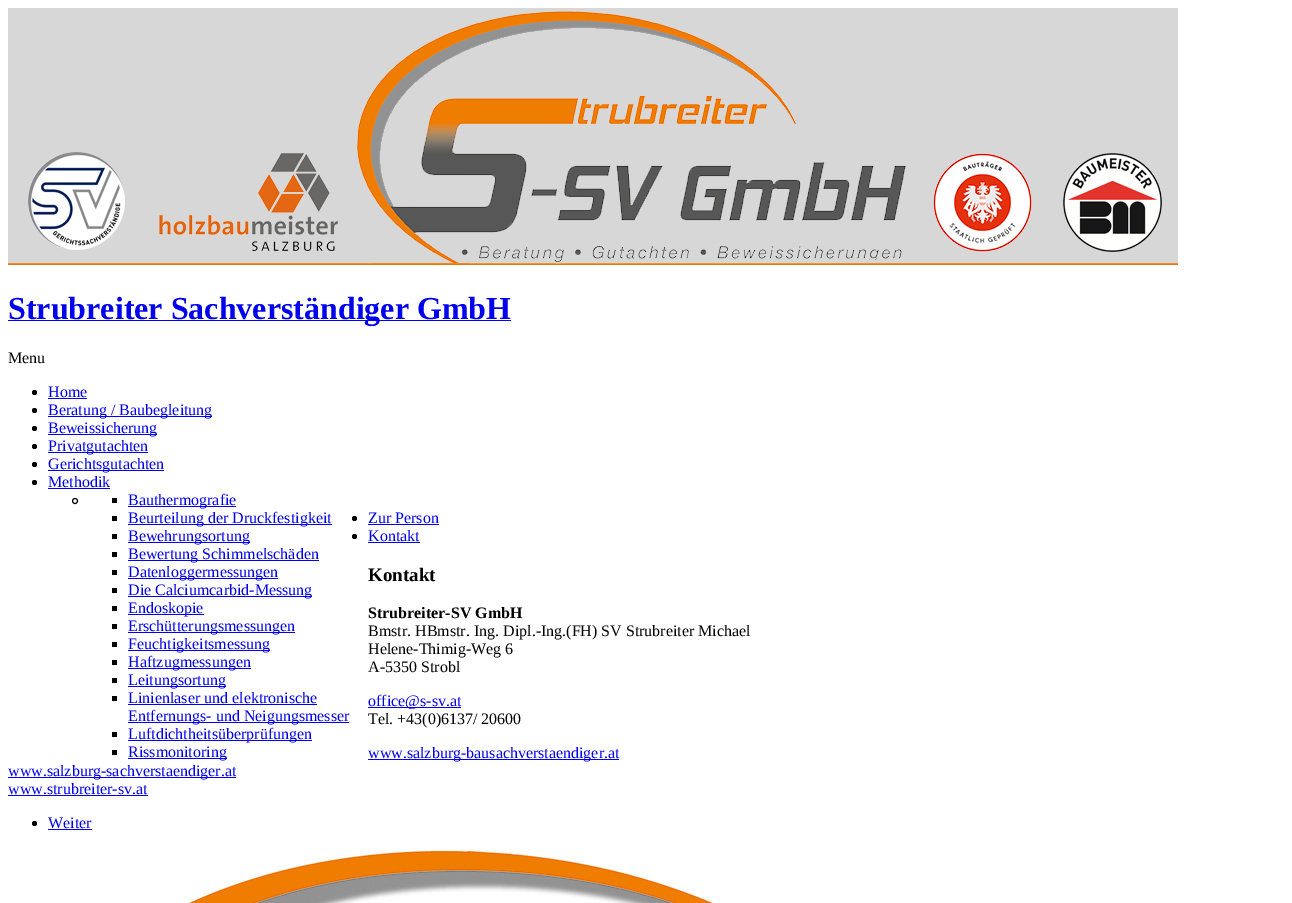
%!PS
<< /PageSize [1292 903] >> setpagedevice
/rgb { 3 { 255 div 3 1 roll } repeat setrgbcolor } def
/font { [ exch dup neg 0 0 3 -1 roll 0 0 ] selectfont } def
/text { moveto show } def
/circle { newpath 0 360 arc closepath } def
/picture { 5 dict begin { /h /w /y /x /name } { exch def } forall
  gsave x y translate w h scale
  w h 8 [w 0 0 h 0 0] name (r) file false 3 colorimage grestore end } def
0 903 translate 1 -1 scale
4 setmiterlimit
255 255 255 rgb
0 0 1292 903 rectfill
(img_01.rgb) 8 8 1170 257 picture
0 0 238 rgb
8 320 503 1 rectfill
0 0 0 rgb
34.5 392.5 2.5 circle fill
0 0 238 rgb
48 398 39 1 rectfill
0 0 0 rgb
34.5 410.5 2.5 circle fill
0 0 238 rgb
48 416 164 1 rectfill
0 0 0 rgb
34.5 428.5 2.5 circle fill
0 0 238 rgb
48 434 109 1 rectfill
0 0 0 rgb
34.5 446.5 2.5 circle fill
0 0 238 rgb
48 452 100 1 rectfill
0 0 0 rgb
34.5 464.5 2.5 circle fill
0 0 238 rgb
48 470 116 1 rectfill
0 0 0 rgb
34.5 482.5 2.5 circle fill
0 0 238 rgb
48 488 62 1 rectfill
0 0 0 rgb
75 501 2.5 circle stroke
112 498 5 5 rectfill
0 0 238 rgb
128 506 108 1 rectfill
0 0 0 rgb
112 516 5 5 rectfill
0 0 238 rgb
128 524 204 1 rectfill
0 0 0 rgb
112 534 5 5 rectfill
0 0 238 rgb
128 542 122 1 rectfill
0 0 0 rgb
112 552 5 5 rectfill
0 0 238 rgb
128 560 191 1 rectfill
0 0 0 rgb
112 570 5 5 rectfill
0 0 238 rgb
128 578 150 1 rectfill
0 0 0 rgb
112 588 5 5 rectfill
0 0 238 rgb
128 596 184 1 rectfill
0 0 0 rgb
112 606 5 5 rectfill
0 0 238 rgb
128 614 76 1 rectfill
0 0 0 rgb
112 624 5 5 rectfill
0 0 238 rgb
128 632 167 1 rectfill
0 0 0 rgb
112 642 5 5 rectfill
0 0 238 rgb
128 650 142 1 rectfill
0 0 0 rgb
112 660 5 5 rectfill
0 0 238 rgb
128 668 123 1 rectfill
0 0 0 rgb
112 678 5 5 rectfill
0 0 238 rgb
128 686 98 1 rectfill
0 0 0 rgb
112 696 5 5 rectfill
0 0 238 rgb
128 704 189 1 rectfill
128 722 221 1 rectfill
0 0 0 rgb
112 732 5 5 rectfill
0 0 238 rgb
128 740 184 1 rectfill
0 0 0 rgb
112 750 5 5 rectfill
0 0 238 rgb
128 758 99 1 rectfill
0 0 0 rgb
354.5 518.5 2.5 circle fill
0 0 238 rgb
368 524 71 1 rectfill
0 0 0 rgb
354.5 536.5 2.5 circle fill
0 0 238 rgb
368 542 52 1 rectfill
368 707 93 1 rectfill
368 759 251 1 rectfill
8 777 228 1 rectfill
8 795 140 1 rectfill
0 0 0 rgb
34.5 823.5 2.5 circle fill
0 0 238 rgb
48 829 44 1 rectfill
(img_02.rgb) 184 848 536 55 picture
/LiberationSerif-Bold 32 font
(Strubreiter Sachverständiger GmbH) 8 319 text
/LiberationSerif-Regular 16 font
0 0 0 rgb
(Menu) 8 363 text
0 0 238 rgb
(Home) 48 397 text
(Beratung / Baubegleitung) 48 415 text
(Beweissicherung) 48 433 text
(Privatgutachten) 48 451 text
(Gerichtsgutachten) 48 469 text
(Methodik) 48 487 text
(Bauthermografie) 128 505 text
(Beurteilung der Druckfestigkeit) 128 523 text
(Bewehrungsortung) 128 541 text
(Bewertung Schimmelschäden) 128 559 text
(Datenloggermessungen) 128 577 text
(Die Calciumcarbid-Messung) 128 595 text
(Endoskopie) 128 613 text
(Erschütterungsmessungen) 128 631 text
(Feuchtigkeitsmessung) 128 649 text
(Haftzugmessungen) 128 667 text
(Leitungsortung) 128 685 text
(Linienlaser und elektronische) 128 703 text
(Entfernungs- und Neigungsmesser) 128 721 text
(Luftdichtheitsüberprüfungen) 128 739 text
(Rissmonitoring) 128 757 text
(Zur Person) 368 523 text
(Kontakt) 368 541 text
/LiberationSerif-Bold 19 font
0 0 0 rgb
(Kontakt) 368 581 text
/LiberationSerif-Bold 16 font
(Strubreiter-SV GmbH) 368 618 text
/LiberationSerif-Regular 16 font
(Bmstr. HBmstr. Ing. Dipl.-Ing.\(FH\) SV Strubreiter Michael) 368 636 text
(Helene-Thimig-Weg 6) 368 654 text
(A-5350 Strobl) 368 672 text
0 0 238 rgb
(office@s-sv.at) 368 706 text
0 0 0 rgb
(Tel. +43\(0\)6137/ 20600) 368 724 text
0 0 238 rgb
(www.salzburg-bausachverstaendiger.at) 368 758 text
(www.salzburg-sachverstaendiger.at) 8 776 text
(www.strubreiter-sv.at) 8 794 text
(Weiter) 48 828 text
showpage
